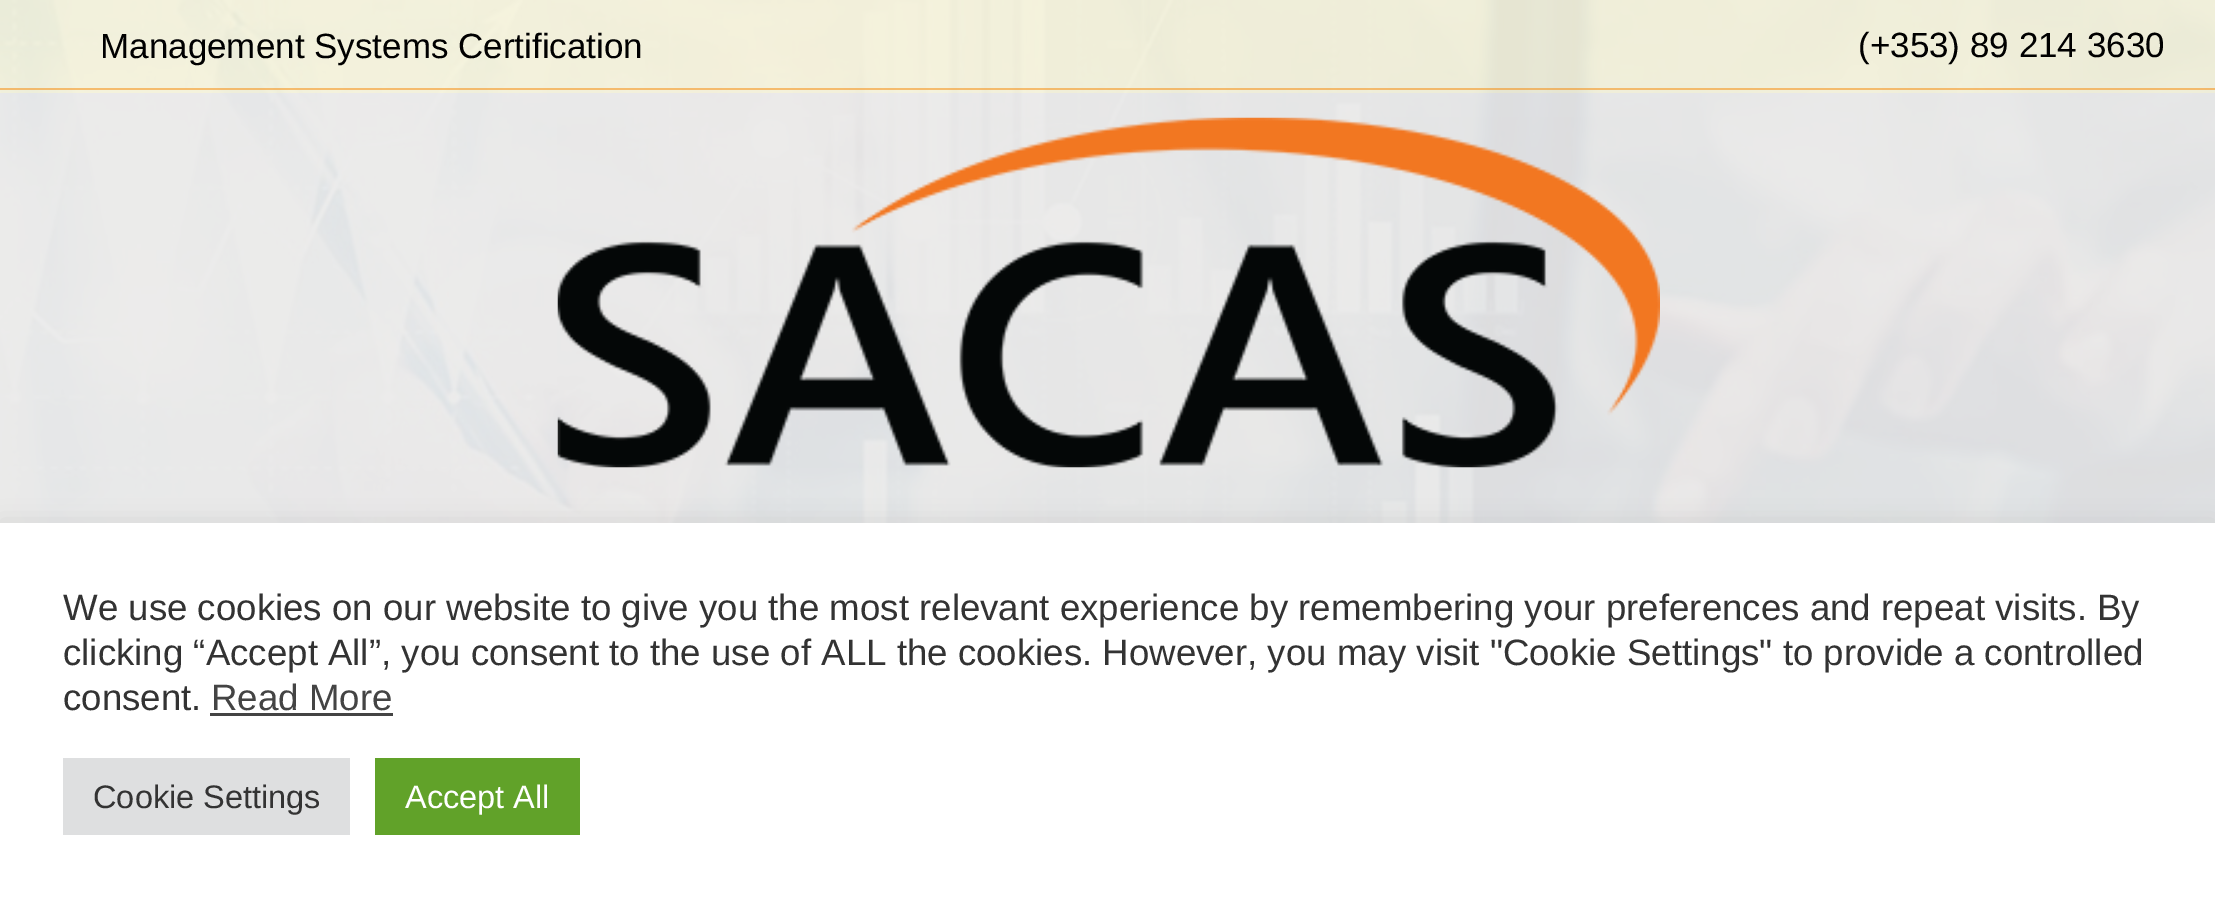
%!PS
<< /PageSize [2215 908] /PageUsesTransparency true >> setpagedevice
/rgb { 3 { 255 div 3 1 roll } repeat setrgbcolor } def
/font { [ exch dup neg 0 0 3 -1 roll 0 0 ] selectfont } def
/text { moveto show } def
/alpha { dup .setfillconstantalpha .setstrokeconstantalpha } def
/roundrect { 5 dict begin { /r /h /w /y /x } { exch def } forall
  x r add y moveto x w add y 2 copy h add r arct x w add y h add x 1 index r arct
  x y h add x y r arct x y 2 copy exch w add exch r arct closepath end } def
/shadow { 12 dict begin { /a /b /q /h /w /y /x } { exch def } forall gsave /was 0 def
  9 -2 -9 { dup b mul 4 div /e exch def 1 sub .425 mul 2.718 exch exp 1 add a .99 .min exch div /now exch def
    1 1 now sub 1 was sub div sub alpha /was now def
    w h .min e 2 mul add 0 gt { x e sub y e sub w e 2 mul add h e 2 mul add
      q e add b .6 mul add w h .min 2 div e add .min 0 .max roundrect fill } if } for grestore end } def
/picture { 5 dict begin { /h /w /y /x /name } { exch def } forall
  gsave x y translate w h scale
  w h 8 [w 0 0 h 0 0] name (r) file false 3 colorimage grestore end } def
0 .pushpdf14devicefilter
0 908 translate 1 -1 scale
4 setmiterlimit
255 255 255 rgb
0 0 2215 908 rectfill
(img_01.rgb) 0 0 2215 523 picture
0.9 alpha
255 253 230 rgb
0 0 2215 93 rectfill
0.5 alpha
246 134 0 rgb
0 88 2215 2 rectfill
0.9 alpha
245 245 245 rgb
0 93 2215 430 rectfill
1 alpha
(img_02.rgb) 557 117 1103 351 picture
172 171 171 rgb
0 520 2215 388 0 12.5 0.3 shadow
255 255 255 rgb
0 523 2215 385 rectfill
68 68 68 rgb
210 713 183 3 rectfill
222 223 224 rgb
63 758 287 77 rectfill
97 162 41 rgb
375 758 205 77 rectfill
/LiberationSans-Regular 35 font
0 0 0 rgb
(Management Systems Certification) 100 58 text
(\(+353\) 89 214 3630) 1858 57 text
/LiberationSans-Regular 36.67 font
51 51 51 rgb
(We use cookies on our website to give you the most relevant experience by remembering your preferences and repeat visits. By) 63 620 text
(clicking “Accept All”, you consent to the use of ALL the cookies. However, you may visit "Cookie Settings" to provide a controlled) 63 665 text
(consent.) 63 710 text
68 68 68 rgb
(Read More) 211 710 text
/LiberationSans-Regular 32.5 font
51 51 51 rgb
(Cookie Settings) 93 808 text
255 255 255 rgb
(Accept All) 405 808 text
.poppdf14devicefilter showpage
